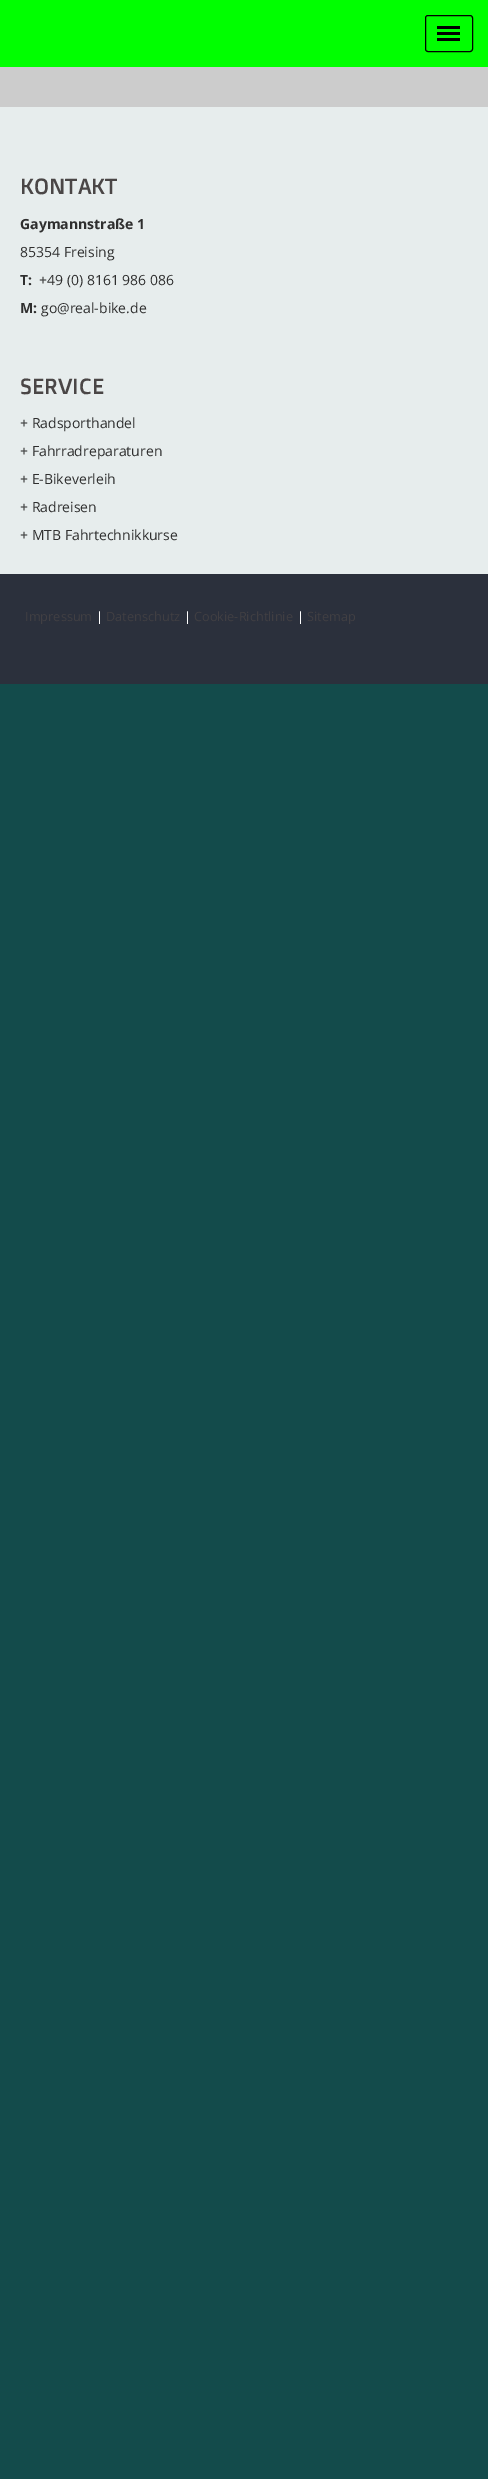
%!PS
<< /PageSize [488 2479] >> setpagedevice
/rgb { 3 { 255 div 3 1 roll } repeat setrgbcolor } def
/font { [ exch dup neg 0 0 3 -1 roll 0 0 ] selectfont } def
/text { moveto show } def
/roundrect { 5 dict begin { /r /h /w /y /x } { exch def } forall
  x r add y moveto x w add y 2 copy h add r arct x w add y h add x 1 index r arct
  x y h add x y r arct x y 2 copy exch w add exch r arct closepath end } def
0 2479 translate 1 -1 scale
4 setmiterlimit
19 75 75 rgb
0 0 488 2479 rectfill
0 255 0 rgb
0 0 488 67 rectfill
0 0 0 rgb
425.5 15.5 47 36 2.5 roundrect stroke
437 32 23 3 rectfill
437 26 23 3 rectfill
437 38 23 3 rectfill
204 204 204 rgb
0 67 488 40 rectfill
231 237 237 rgb
0 107 488 467 rectfill
43 48 60 rgb
0 574 488 110 rectfill
/DoppioOne-Regular 22 font
74 70 70 rgb
(KONTAKT) 20 194 text
/OpenSans-Bold 14 font
47 47 47 rgb
(Gaymannstraße 1) 20 229 text
/OpenSans-Regular 14 font
(85354 Freising) 20 257 text
/OpenSans-Bold 14 font
(T:) 20 285 text
/OpenSans-Regular 14 font
(+49 \(0\) 8161 986 086) 39 285 text
/OpenSans-Bold 14 font
(M:) 20 313 text
/OpenSans-Regular 14 font
(go@real-bike.de) 41 313 text
/DoppioOne-Regular 22 font
74 70 70 rgb
(SERVICE) 20 394 text
/OpenSans-Regular 14 font
47 47 47 rgb
(+ Radsporthandel) 20 428 text
(+ Fahrradreparaturen) 20 456 text
(+ E-Bikeverleih) 20 484 text
(+ Radreisen) 20 512 text
(+ MTB Fahrtechnikkurse) 20 540 text
/OpenSans-Regular 12.75 font
65 63 67 rgb
(Impressum) 25 621 text
255 255 255 rgb
(|) 96 621 text
65 63 67 rgb
(Datenschutz) 106 621 text
255 255 255 rgb
(|) 184 621 text
65 63 67 rgb
(Cookie-Richtlinie) 194 621 text
255 255 255 rgb
(|) 297 621 text
65 63 67 rgb
(Sitemap) 307 621 text
showpage
